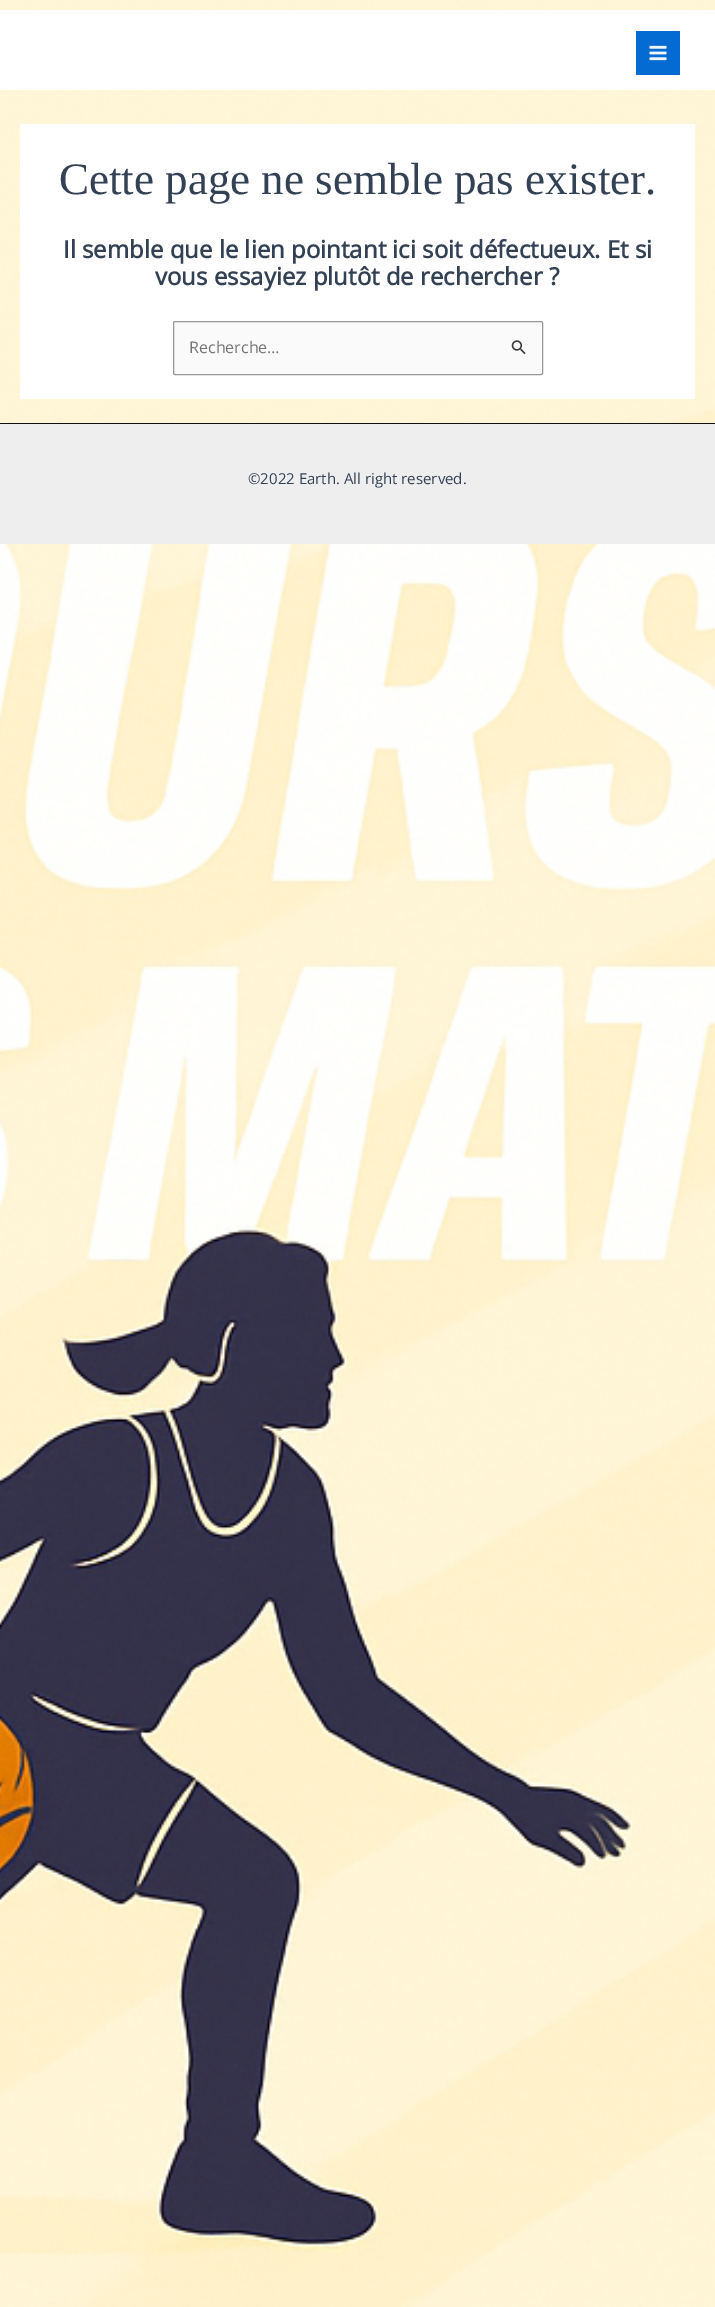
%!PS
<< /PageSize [715 2307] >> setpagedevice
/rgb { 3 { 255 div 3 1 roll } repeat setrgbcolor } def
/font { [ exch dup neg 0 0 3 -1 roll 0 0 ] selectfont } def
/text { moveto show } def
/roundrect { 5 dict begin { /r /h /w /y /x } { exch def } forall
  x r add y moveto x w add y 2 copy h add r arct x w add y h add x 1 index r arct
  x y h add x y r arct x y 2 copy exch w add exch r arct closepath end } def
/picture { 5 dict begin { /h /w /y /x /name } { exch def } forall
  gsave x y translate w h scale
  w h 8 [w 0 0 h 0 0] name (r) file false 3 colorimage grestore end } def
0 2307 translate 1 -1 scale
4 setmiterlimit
255 255 255 rgb
0 0 715 2307 rectfill
(img_01.rgb) 0 0 715 2307 picture
0 10 715 80 rectfill
4 107 210 rgb
636 31 44 44 rectfill
(img_02.rgb) 649 45 18 16 picture
255 255 255 rgb
20 124 675 275 rectfill
250 250 250 rgb
173.5 321.5 369 53 1.5 roundrect gsave fill grestore
152 152 152 rgb
stroke
(img_03.rgb) 511 340 15 15 picture
238 238 238 rgb
0 424 715 120 rectfill
17 17 17 rgb
0 423 715 1 rectfill
/LiberationSerif-Regular 45 font
51 65 85 rgb
(Cette page ne semble pas exister.) 59 194 text
/OpenSans-Bold 24 font
(Il semble que le lien pointant ici soit défectueux. Et si) 63 258 text
(vous essayiez plutôt de rechercher ?) 155 285 text
/OpenSans-Regular 16 font
117 117 117 rgb
(Recherche…) 189 353 text
/OpenSans-Regular 15 font
51 65 85 rgb
(©2022 Earth. All right reserved.) 248 484 text
showpage
